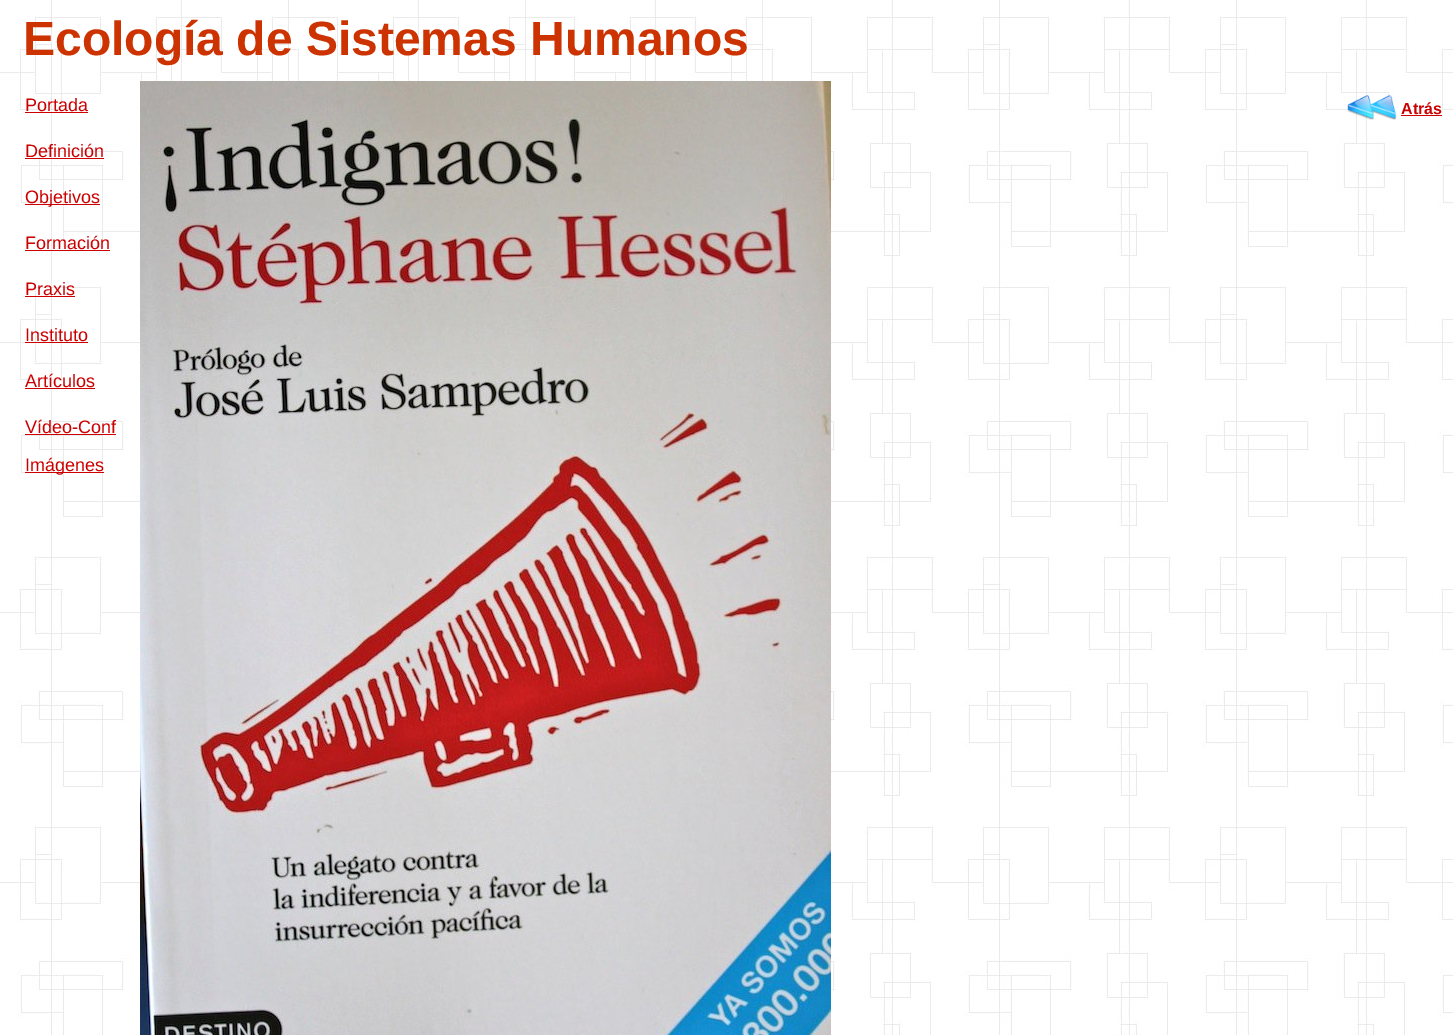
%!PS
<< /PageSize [1453 1035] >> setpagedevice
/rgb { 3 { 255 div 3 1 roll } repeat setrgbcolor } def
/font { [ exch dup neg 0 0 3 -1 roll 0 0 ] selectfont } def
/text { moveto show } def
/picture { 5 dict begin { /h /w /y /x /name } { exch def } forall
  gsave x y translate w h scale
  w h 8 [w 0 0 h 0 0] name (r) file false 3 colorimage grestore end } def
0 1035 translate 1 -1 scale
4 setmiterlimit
255 255 255 rgb
0 0 1453 1035 rectfill
(img_01.rgb) 0 0 1453 1035 picture
204 0 0 rgb
25 112 63 1 rectfill
25 158 79 1 rectfill
25 204 75 1 rectfill
25 250 85 1 rectfill
25 296 50 1 rectfill
25 342 63 1 rectfill
25 388 70 1 rectfill
25 434 91 1 rectfill
25 472 79 1 rectfill
(img_02.rgb) 140 81 691 954 picture
(img_03.rgb) 1347 95 50 25 picture
1401 115 41 1 rectfill
/LiberationSans-Bold 48 font
204 51 0 rgb
(Ecología de Sistemas Humanos) 23 55 text
/LiberationSans-Regular 18 font
204 0 0 rgb
(Portada) 25 111 text
(Definición) 25 157 text
(Objetivos) 25 203 text
(Formación) 25 249 text
(Praxis) 25 295 text
(Instituto) 25 341 text
(Artículos) 25 387 text
(Vídeo-Conf) 25 433 text
(Imágenes) 25 471 text
/LiberationSans-Bold 16 font
(Atrás) 1401 114 text
showpage
